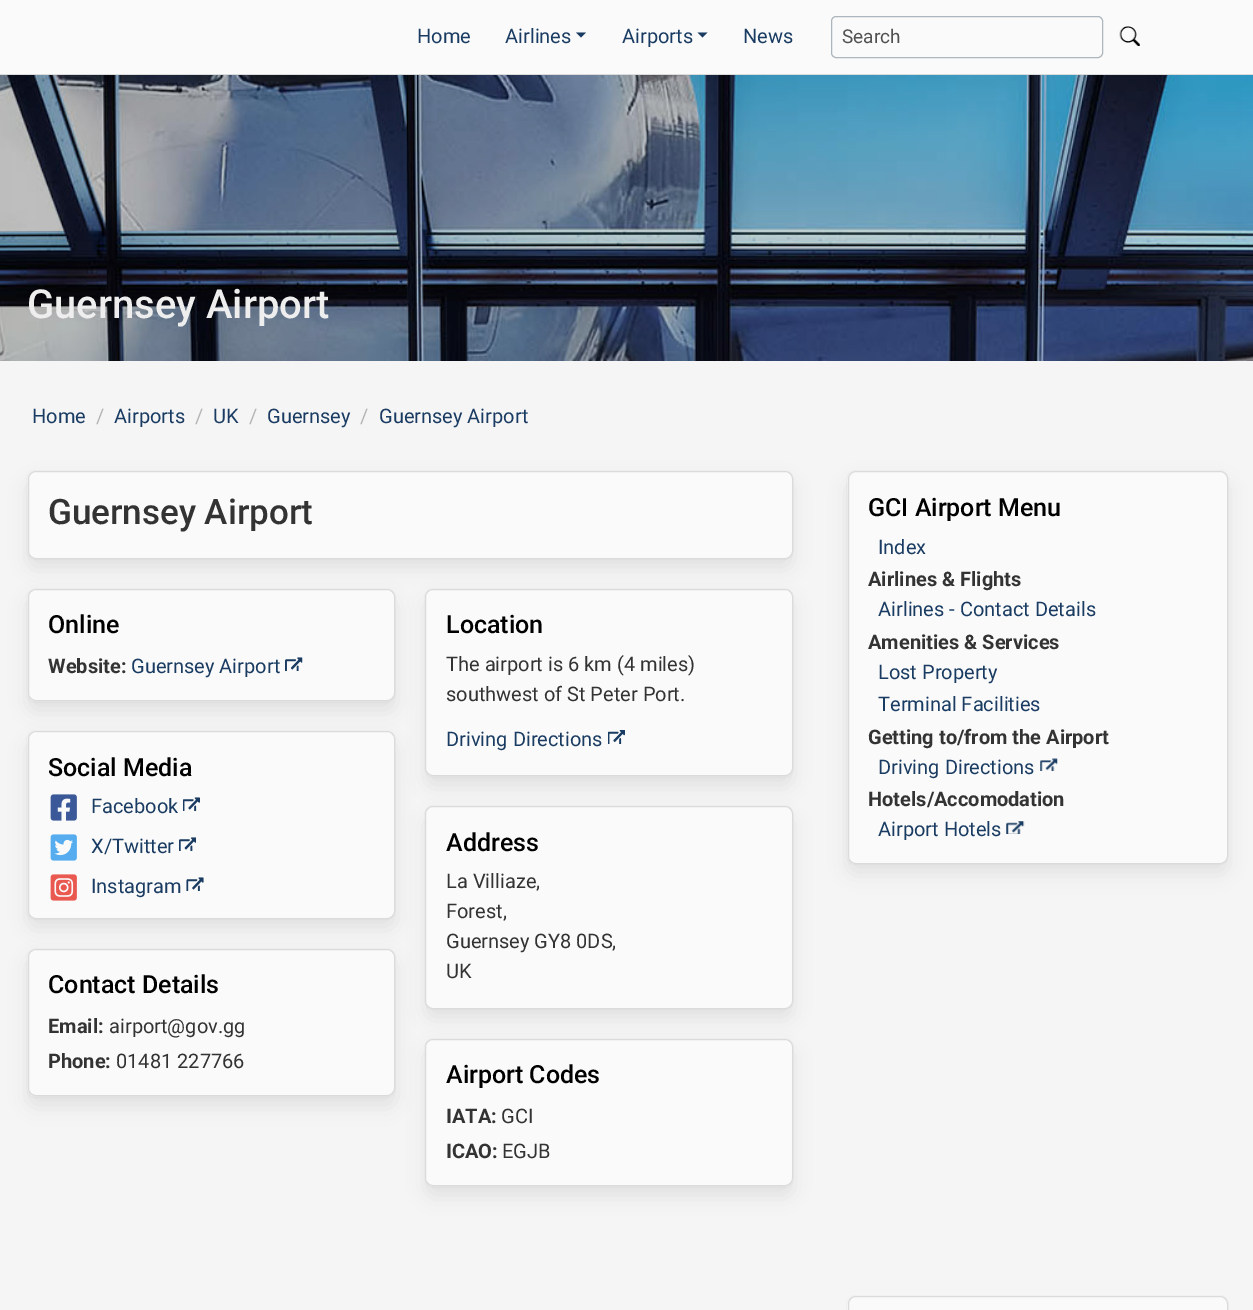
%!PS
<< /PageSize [1253 1310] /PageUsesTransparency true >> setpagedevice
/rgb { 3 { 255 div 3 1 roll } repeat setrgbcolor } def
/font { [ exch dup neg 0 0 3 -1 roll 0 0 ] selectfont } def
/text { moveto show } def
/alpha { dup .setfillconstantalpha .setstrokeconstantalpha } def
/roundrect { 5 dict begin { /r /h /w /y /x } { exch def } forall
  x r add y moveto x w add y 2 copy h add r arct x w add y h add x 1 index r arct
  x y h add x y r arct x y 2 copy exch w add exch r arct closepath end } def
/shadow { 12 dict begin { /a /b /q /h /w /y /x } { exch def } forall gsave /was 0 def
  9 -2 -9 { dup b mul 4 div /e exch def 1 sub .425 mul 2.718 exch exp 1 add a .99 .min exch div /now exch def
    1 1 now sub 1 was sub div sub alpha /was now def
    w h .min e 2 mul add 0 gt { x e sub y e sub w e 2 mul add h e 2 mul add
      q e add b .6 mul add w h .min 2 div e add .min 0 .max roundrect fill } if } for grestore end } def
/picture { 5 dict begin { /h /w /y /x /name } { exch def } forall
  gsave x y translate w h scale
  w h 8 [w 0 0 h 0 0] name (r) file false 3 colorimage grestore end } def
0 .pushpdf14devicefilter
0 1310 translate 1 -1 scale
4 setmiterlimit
245 245 245 rgb
0 0 1253 1310 rectfill
250 250 250 rgb
0 0 1253 74 rectfill
219 219 219 rgb
0 74 1253 1 rectfill
26 60 98 rgb
576 32.5 moveto 10 0 rlineto -5 5 rlineto closepath fill
697.5 32.5 moveto 10 0 rlineto -5 5 rlineto closepath fill
173 181 189 rgb
831.5 16.5 271 41 4.5 roundrect stroke
(img_01.rgb) 1119 26 21 20 picture
(img_02.rgb) 0 75 1253 286 picture
240 240 240 rgb
26.5 470.5 767 89 8.5 roundrect stroke
10 10 10 rgb
30 484 760 82 5 10 0.1 shadow
250 250 250 rgb
28.5 471.5 764 87 7.5 roundrect gsave fill grestore
219 219 219 rgb
stroke
240 240 240 rgb
26.5 588.5 369 114 8.5 roundrect stroke
10 10 10 rgb
30 601 363 108 5 10 0.1 shadow
250 250 250 rgb
28.5 589.5 366 111 7.5 roundrect gsave fill grestore
219 219 219 rgb
stroke
(img_03.rgb) 285 657 18 14 picture
240 240 240 rgb
26.5 730.5 369 189 8.5 roundrect stroke
10 10 10 rgb
30 744 363 182 5 10 0.1 shadow
250 250 250 rgb
28.5 731.5 366 187 7.5 roundrect gsave fill grestore
219 219 219 rgb
stroke
(img_04.rgb) 50 794 27 27 picture
(img_05.rgb) 183 797 17 14 picture
(img_06.rgb) 50 834 27 27 picture
(img_07.rgb) 179 837 17 14 picture
(img_08.rgb) 50 874 27 27 picture
(img_09.rgb) 186 877 18 14 picture
240 240 240 rgb
26.5 948.5 369 149 8.5 roundrect stroke
10 10 10 rgb
30 961 363 143 5 10 0.1 shadow
250 250 250 rgb
28.5 949.5 366 146 7.5 roundrect gsave fill grestore
219 219 219 rgb
stroke
240 240 240 rgb
424.5 588.5 369 189 8.5 roundrect stroke
10 10 10 rgb
428 601 362 183 5 10 0.1 shadow
250 250 250 rgb
425.5 589.5 367 186 7.5 roundrect gsave fill grestore
219 219 219 rgb
stroke
(img_10.rgb) 608 730 17 14 picture
240 240 240 rgb
424.5 805.5 369 204 8.5 roundrect stroke
10 10 10 rgb
428 819 362 197 5 10 0.1 shadow
250 250 250 rgb
425.5 806.5 367 202 7.5 roundrect gsave fill grestore
219 219 219 rgb
stroke
240 240 240 rgb
424.5 1038.5 369 149 8.5 roundrect stroke
10 10 10 rgb
428 1051 362 143 5 10 0.1 shadow
250 250 250 rgb
425.5 1039.5 367 146 7.5 roundrect gsave fill grestore
219 219 219 rgb
stroke
240 240 240 rgb
846.5 470.5 382 394 8.5 roundrect stroke
10 10 10 rgb
850 484 375 387 5 10 0.1 shadow
250 250 250 rgb
848.5 471.5 379 392 7.5 roundrect gsave fill grestore
219 219 219 rgb
stroke
(img_11.rgb) 1040 758 18 13 picture
(img_12.rgb) 1006 821 19 13 picture
240 240 240 rgb
846.5 1295.5 382 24 8.5 roundrect stroke
250 250 250 rgb
848.5 1296.5 379 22 7.5 roundrect gsave fill grestore
219 219 219 rgb
stroke
/Roboto-Regular 20 font
26 60 98 rgb
(Home) 417 43 text
(Airlines) 505 43 text
(Airports) 622 43 text
(News) 743 43 text
/Roboto-Regular 19 font
81 81 81 rgb
(Search) 842 43 text
/Roboto-Medium 40 font
238 238 238 rgb
(Guernsey Airport) 27 318 text
/Roboto-Regular 20 font
26 60 98 rgb
(Home) 32 423 text
181 181 181 rgb
(/) 96 423 text
26 60 98 rgb
(Airports) 114 423 text
181 181 181 rgb
(/) 195 423 text
26 60 98 rgb
(UK) 213 423 text
181 181 181 rgb
(/) 249 423 text
26 60 98 rgb
(Guernsey) 267 423 text
181 181 181 rgb
(/) 360 423 text
26 60 98 rgb
(Guernsey Airport) 379 423 text
/Roboto-Medium 35 font
51 51 51 rgb
(Guernsey Airport) 48 524 text
/Roboto-Medium 25 font
0 0 0 rgb
(Online) 48 633 text
/Roboto-Bold 20 font
51 51 51 rgb
(Website:) 48 673 text
/Roboto-Regular 20 font
26 60 98 rgb
(Guernsey Airport) 131 673 text
/Roboto-Medium 25 font
0 0 0 rgb
(Social Media) 48 776 text
/Roboto-Regular 20 font
26 60 98 rgb
(Facebook) 91 813 text
(X/Twitter) 91 853 text
(Instagram) 91 893 text
/Roboto-Medium 25 font
0 0 0 rgb
(Contact Details) 48 993 text
/Roboto-Bold 20 font
51 51 51 rgb
(Email:) 48 1033 text
/Roboto-Regular 20 font
(airport@gov.gg) 109 1033 text
/Roboto-Bold 20 font
(Phone:) 48 1068 text
/Roboto-Regular 20 font
(01481 227766) 116 1068 text
/Roboto-Medium 25 font
0 0 0 rgb
(Location) 446 633 text
/Roboto-Regular 20 font
51 51 51 rgb
(The airport is 6 km \(4 miles\)) 446 671 text
(southwest of St Peter Port.) 446 701 text
26 60 98 rgb
(Driving Directions) 446 746 text
/Roboto-Medium 25 font
0 0 0 rgb
(Address) 446 851 text
/Roboto-Regular 20 font
51 51 51 rgb
(La Villiaze,) 446 888 text
(Forest,) 446 918 text
(Guernsey GY8 0DS,) 446 948 text
(UK) 446 978 text
/Roboto-Medium 25 font
0 0 0 rgb
(Airport Codes) 446 1083 text
/Roboto-Bold 20 font
51 51 51 rgb
(IATA:) 446 1123 text
/Roboto-Regular 20 font
(GCI) 501 1123 text
/Roboto-Bold 20 font
(ICAO:) 446 1158 text
/Roboto-Regular 20 font
(EGJB) 502 1158 text
/Roboto-Medium 25 font
0 0 0 rgb
(GCI Airport Menu) 868 516 text
/Roboto-Regular 20 font
26 60 98 rgb
(Index) 878 554 text
/Roboto-Bold 20 font
51 51 51 rgb
(Airlines & Flights) 868 586 text
/Roboto-Regular 20 font
26 60 98 rgb
(Airlines - Contact Details) 878 616 text
/Roboto-Bold 20 font
51 51 51 rgb
(Amenities & Services) 868 649 text
/Roboto-Regular 20 font
26 60 98 rgb
(Lost Property) 878 679 text
(Terminal Facilities) 878 711 text
/Roboto-Bold 20 font
51 51 51 rgb
(Getting to/from the Airport) 868 744 text
/Roboto-Regular 20 font
26 60 98 rgb
(Driving Directions) 878 774 text
/Roboto-Bold 20 font
51 51 51 rgb
(Hotels/Accomodation) 868 806 text
/Roboto-Regular 20 font
26 60 98 rgb
(Airport Hotels) 878 836 text
.poppdf14devicefilter showpage
